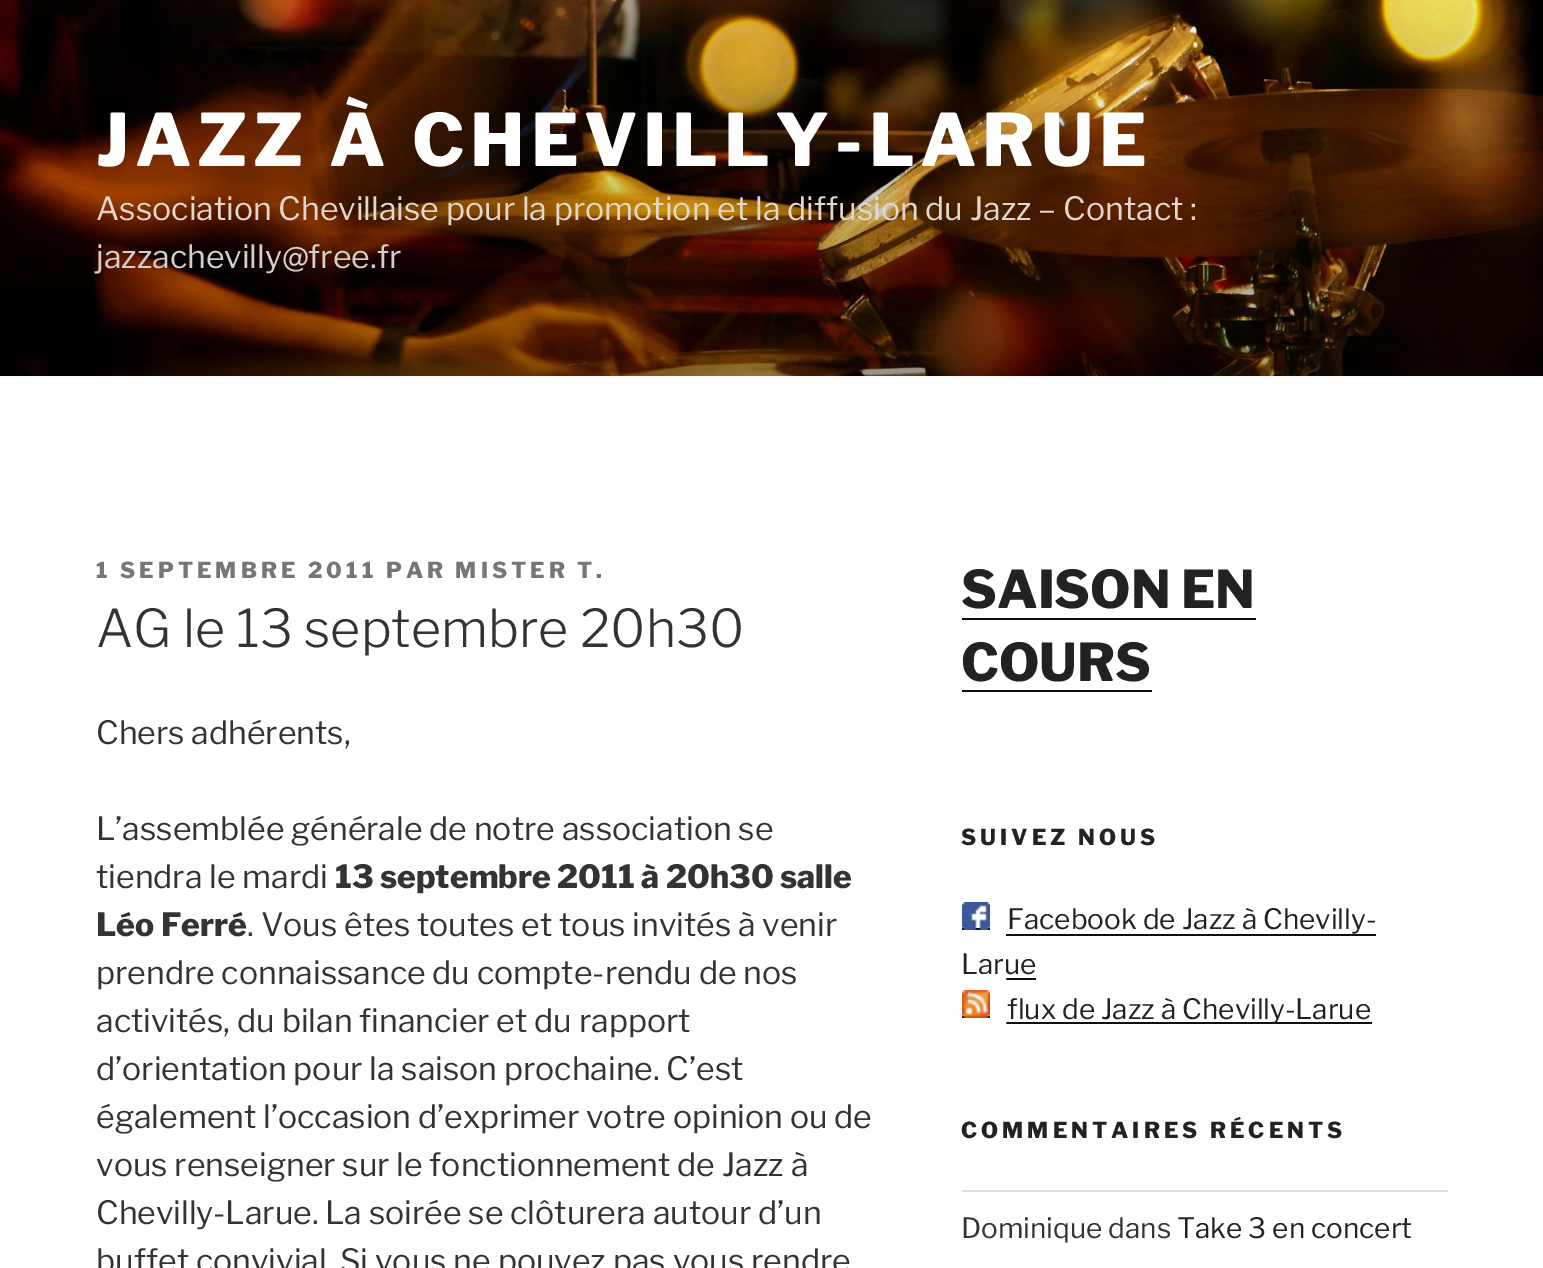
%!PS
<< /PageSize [1543 1268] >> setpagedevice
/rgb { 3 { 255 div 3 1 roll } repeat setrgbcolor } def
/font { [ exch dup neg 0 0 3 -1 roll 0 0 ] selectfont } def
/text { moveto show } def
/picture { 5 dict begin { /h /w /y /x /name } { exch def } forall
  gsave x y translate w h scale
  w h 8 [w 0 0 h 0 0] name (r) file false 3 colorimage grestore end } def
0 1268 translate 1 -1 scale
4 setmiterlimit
255 255 255 rgb
0 0 1543 1268 rectfill
250 250 250 rgb
0 376 1543 2 rectfill
(img_01.rgb) 0 0 1543 376 picture
15 15 15 rgb
962 618 294 2 rectfill
962 690 190 2 rectfill
962 928 28 2 rectfill
(img_02.rgb) 962 902 28 28 picture
1006 934 370 2 rectfill
1006 978 30 2 rectfill
962 1016 28 2 rectfill
1006 1022 366 2 rectfill
221 221 221 rgb
962 1190 486 2 rectfill
/LibreFranklin-Thin 72 font
255 255 255 rgb
96 166 moveto 5.75 0 (JAZZ À CHEVILLY-LARUE) ashow
/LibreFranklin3-Thin 32 font
226 215 205 rgb
(Association Chevillaise pour la promotion et la diffusion du Jazz – Contact :) 96 220 text
212 206 204 rgb
(jazzachevilly@free.fr) 96 268 text
/LibreFranklin-Thin 22 font
118 118 118 rgb
96 578 moveto 4 0 (1 SEPTEMBRE 2011 PAR MISTER T.) ashow
/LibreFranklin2-Thin 52 font
51 51 51 rgb
(AG le 13 septembre 20h30) 96 647 text
/LibreFranklin3-Thin 32 font
(Chers adhérents,) 96 744 text
(L’assemblée générale de notre association se) 96 840 text
(tiendra le mardi) 96 888 text
/LibreFranklin-Thin 32 font
(13 septembre 2011 à 20h30 salle) 335 888 text
(Léo Ferré) 96 936 text
/LibreFranklin3-Thin 32 font
(. Vous êtes toutes et tous invités à venir) 247 936 text
(prendre connaissance du compte-rendu de nos) 96 984 text
(activités, du bilan financier et du rapport) 96 1032 text
(d’orientation pour la saison prochaine. C’est) 96 1080 text
(également l’occasion d’exprimer votre opinion ou de) 96 1128 text
(vous renseigner sur le fonctionnement de Jazz à) 96 1176 text
(Chevilly-Larue. La soirée se clôturera autour d’un) 96 1224 text
(buffet convivial. Si vous ne pouvez pas vous rendre) 96 1272 text
/LibreFranklin-Thin 52 font
34 34 34 rgb
(SAISON EN) 961 608 text
(COURS) 961 681 text
/LibreFranklin-Thin 22 font
961 845 moveto 4 0 (SUIVEZ NOUS) ashow
/LibreFranklin3-Thin 28 font
(Facebook de Jazz à Chevilly-) 1007 929 text
(Larue) 961 974 text
(flux de Jazz à Chevilly-Larue) 1007 1019 text
255 255 255 rgb
16 setlinewidth
954 982 44 44 rectstroke
(img_03.rgb) 962 990 28 28 picture
/LibreFranklin-Thin 22 font
34 34 34 rgb
961 1138 moveto 4 0 (COMMENTAIRES RÉCENTS) ashow
/LibreFranklin3-Thin 28 font
51 51 51 rgb
(Dominique dans) 961 1238 text
34 34 34 rgb
(Take 3 en concert) 1177 1238 text
showpage
